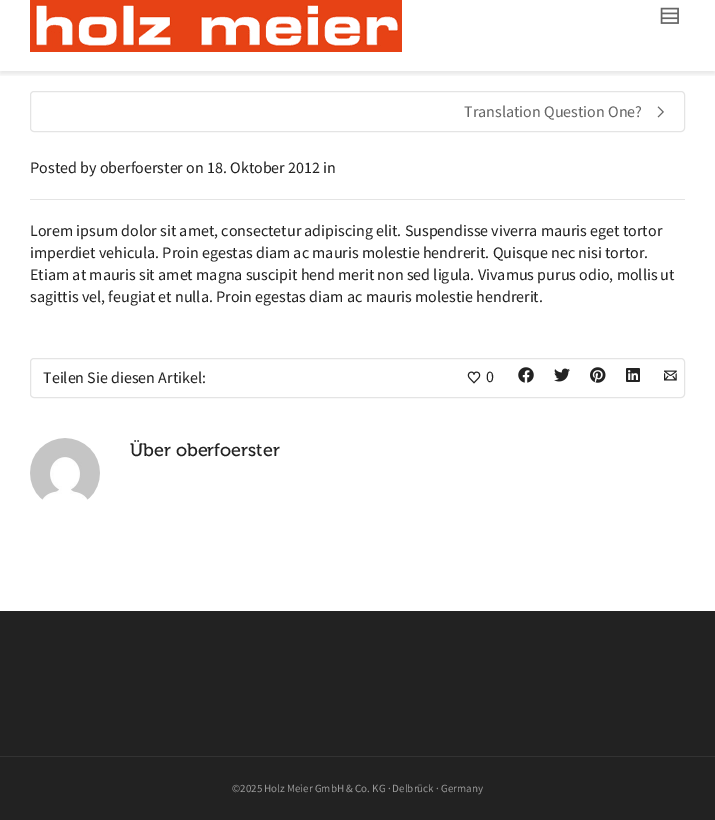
%!PS
<< /PageSize [715 820] /PageUsesTransparency true >> setpagedevice
/rgb { 3 { 255 div 3 1 roll } repeat setrgbcolor } def
/font { [ exch dup neg 0 0 3 -1 roll 0 0 ] selectfont } def
/text { moveto show } def
/alpha { dup .setfillconstantalpha .setstrokeconstantalpha } def
/roundrect { 5 dict begin { /r /h /w /y /x } { exch def } forall
  x r add y moveto x w add y 2 copy h add r arct x w add y h add x 1 index r arct
  x y h add x y r arct x y 2 copy exch w add exch r arct closepath end } def
/shadow { 12 dict begin { /a /b /q /h /w /y /x } { exch def } forall gsave /was 0 def
  9 -2 -9 { dup b mul 4 div /e exch def 1 sub .425 mul 2.718 exch exp 1 add a .99 .min exch div /now exch def
    1 1 now sub 1 was sub div sub alpha /was now def
    w h .min e 2 mul add 0 gt { x e sub y e sub w e 2 mul add h e 2 mul add
      q e add b .6 mul add w h .min 2 div e add .min 0 .max roundrect fill } if } for grestore end } def
/picture { 5 dict begin { /h /w /y /x /name } { exch def } forall
  gsave x y translate w h scale
  w h 8 [w 0 0 h 0 0] name (r) file false 3 colorimage grestore end } def
0 .pushpdf14devicefilter
0 820 translate 1 -1 scale
4 setmiterlimit
255 255 255 rgb
0 0 715 820 rectfill
gsave
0 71 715 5 rectclip
0 0 0 rgb
0 2 715 72 0 2.5 0.1 shadow
grestore
(img_01.rgb) 30 0 372 52 picture
(img_02.rgb) 660 7 19 17 picture
228 228 228 rgb
30.5 91.5 654 40 3.5 roundrect stroke
(img_03.rgb) 657 106 7 12 picture
30 199 655 1 rectfill
30.5 358.5 654 39 3.5 roundrect stroke
(img_04.rgb) 467 371 14 13 picture
(img_05.rgb) 518 367 16 16 picture
(img_06.rgb) 554 368 16 14 picture
(img_07.rgb) 590 367 16 16 picture
(img_08.rgb) 626 368 14 14 picture
(img_09.rgb) 664 370 13 11 picture
(img_10.rgb) 30 438 70 62 picture
34 34 34 rgb
0 611 715 145 rectfill
0 757 715 63 rectfill
51 51 51 rgb
0 756 715 1 rectfill
/SourceSansPro-Regular 16 font
102 102 102 rgb
(Translation Question One?) 464 117 text
34 34 34 rgb
(Posted by oberfoerster on 18. Oktober 2012 in) 30 173 text
(Lorem ipsum dolor sit amet, consectetur adipiscing elit. Suspendisse viverra mauris eget tortor) 30 236 text
(imperdiet vehicula. Proin egestas diam ac mauris molestie hendrerit. Quisque nec nisi tortor.) 30 258 text
(Etiam at mauris sit amet magna suscipit hend merit non sed ligula. Vivamus purus odio, mollis ut) 30 280 text
(sagittis vel, feugiat et nulla. Proin egestas diam ac mauris molestie hendrerit.) 30 302 text
(Teilen Sie diesen Artikel:) 43 383 text
(0) 486 382 text
/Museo-Regular 18 font
(Über oberfoerster) 130 456 text
/SourceSansPro-Regular 11 font
153 153 153 rgb
(©2025 Holz Meier GmbH & Co. KG · Delbrück · Germany) 232 792 text
.poppdf14devicefilter showpage
